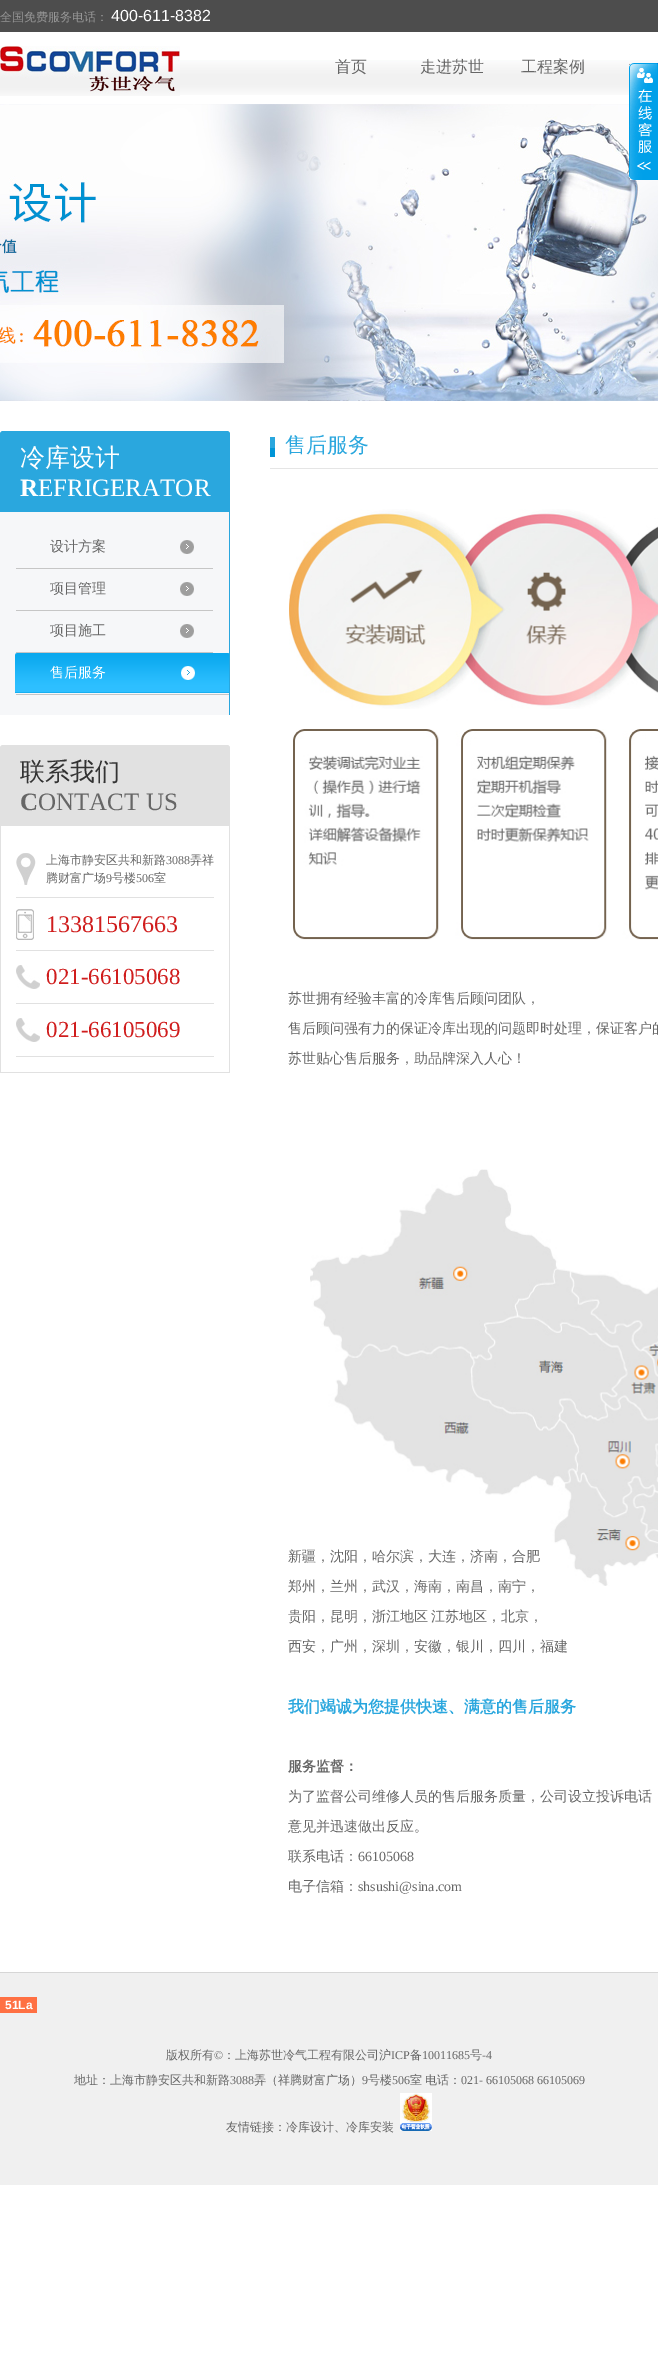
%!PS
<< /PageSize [658 2377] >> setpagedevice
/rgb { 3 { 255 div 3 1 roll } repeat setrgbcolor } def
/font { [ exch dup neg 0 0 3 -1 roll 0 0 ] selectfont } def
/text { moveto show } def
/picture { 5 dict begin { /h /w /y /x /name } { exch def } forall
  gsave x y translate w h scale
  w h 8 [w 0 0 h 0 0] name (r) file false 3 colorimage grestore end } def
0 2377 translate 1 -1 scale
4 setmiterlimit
255 255 255 rgb
0 0 658 2377 rectfill
77 77 77 rgb
0 0 658 32 rectfill
(img_01.rgb) 180 60 478 35 picture
(img_02.rgb) 0 46 180 50 picture
(img_04.rgb) 0 104 658 297 picture
(img_03.rgb) 629 63 29 117 picture
42 167 222 rgb
3 431 moveto 224 0 rlineto 1.5 0 3 1.5 3 3 rcurveto 0 78 rlineto -230 0 rlineto 0 -78 rlineto 0 -1.5 1.5 -3 3 -3 rcurveto closepath fill
246 247 249 rgb
0 512 229 203 rectfill
42 167 222 rgb
229 512 1 203 rectfill
198 198 198 rgb
16 568 197 1 rectfill
(img_05.rgb) 180 540 14 14 picture
16 610 197 1 rectfill
(img_05.rgb) 180 582 14 14 picture
16 652 197 1 rectfill
(img_05.rgb) 180 624 14 14 picture
(img_06.rgb) 15 653 214 40 picture
16 694 213 1 rectfill
(img_07.rgb) 181 666 14 14 picture
225 225 225 rgb
3 745 moveto 224 0 rlineto 1.5 0 3 1.5 3 3 rcurveto 0 78 rlineto -230 0 rlineto 0 -78 rlineto 0 -1.5 1.5 -3 3 -3 rcurveto closepath fill
229 826 1 247 rectfill
0 1072 230 1 rectfill
0 826 1 247 rectfill
(img_08.rgb) 16 853 20 32 picture
16 897 198 1 rectfill
(img_09.rgb) 16 909 18 31 picture
16 950 198 1 rectfill
(img_10.rgb) 16 965 24 24 picture
16 1003 198 1 rectfill
(img_10.rgb) 16 1018 24 24 picture
16 1056 198 1 rectfill
(img_11.rgb) 270 437 5 20 picture
229 229 229 rgb
270 468 388 1 rectfill
(img_12.rgb) 289 509 369 200 picture
(img_13.rgb) 293 729 365 211 picture
(img_14.rgb) 310 1169 348 417 picture
240 240 240 rgb
0 1973 658 212 rectfill
214 214 214 rgb
0 1972 658 1 rectfill
255 112 67 rgb
0 1997 37 16 rectfill
(img_15.rgb) 400 2093 32 38 picture
/WenQuanYiZenHei-Medium 12 font
151 151 151 rgb
(全国免费服务电话：) 0 21 text
/LiberationSans-Regular 16 font
255 255 255 rgb
(400-611-8382) 111 21 text
/WenQuanYiZenHei-Medium 16 font
102 102 102 rgb
(首页) 335 72 text
(走进苏世) 420 72 text
(工程案例) 521 72 text
/WenQuanYiZenHei-Medium 25 font
255 255 255 rgb
(冷库设计) 20 466 text
/LiberationSerif-Bold 25 font
(R) 20 496 text
/LiberationSerif-Regular 25 font
(EFRIGERATOR) 38 496 text
/WenQuanYiZenHei-Medium 14 font
102 102 102 rgb
(设计方案) 50 551 text
(项目管理) 50 593 text
(项目施工) 50 635 text
255 255 255 rgb
(售后服务) 50 677 text
/WenQuanYiZenHei-Medium 25 font
51 51 51 rgb
(联系我们) 20 780 text
/LiberationSerif-Bold 25 font
102 102 102 rgb
(C) 20 810 text
/LiberationSerif-Regular 25 font
(ONTACT US) 38 810 text
/WenQuanYiZenHei-Medium 12 font
(上海市静安区共和新路) 46 864 text
/LiberationSerif-Regular 12 font
(3088) 166 864 text
/WenQuanYiZenHei-Medium 12 font
(弄祥) 190 864 text
(腾财富广场) 46 882 text
/LiberationSerif-Regular 12 font
(9) 106 882 text
/WenQuanYiZenHei-Medium 12 font
(号楼) 112 882 text
/LiberationSerif-Regular 12 font
(506) 136 882 text
/WenQuanYiZenHei-Medium 12 font
(室) 154 882 text
/LiberationSerif-Regular 24 font
208 29 29 rgb
(13381567663) 46 932 text
/LiberationSerif-Regular 23 font
(021-66105068) 46 984 text
(021-66105069) 46 1037 text
/WenQuanYiZenHei-Medium 21 font
42 167 222 rgb
(售后服务) 285 452 text
/WenQuanYiZenHei-Medium 14 font
102 102 102 rgb
(苏世拥有经验丰富的冷库售后顾问团队，) 288 1003 text
(售后顾问强有力的保证冷库出现的问题即时处理，保证客户的) 288 1033 text
(苏世贴心售后服务，助品牌深入人心！) 288 1063 text
(新疆，沈阳，哈尔滨，大连，济南，合肥) 288 1561 text
(郑州，兰州，武汉，海南，南昌，南宁，) 288 1591 text
288 1621 moveto -1 0 32 (贵阳，昆明，浙江地区 江苏地区，北京，) widthshow
(西安，广州，深圳，安徽，银川，四川，福建) 288 1651 text
/WenQuanYiZenHei-Bold 16 font
42 167 222 rgb
(我们竭诚为您提供快速、满意的售后服务) 288 1712 text
/WenQuanYiZenHei-Bold 14 font
102 102 102 rgb
(服务监督：) 288 1771 text
/WenQuanYiZenHei-Medium 14 font
(为了监督公司维修人员的售后服务质量，公司设立投诉电话) 288 1801 text
(意见并迅速做出反应。) 288 1831 text
(联系电话：) 288 1861 text
/LiberationSerif-Regular 14 font
(66105068) 358 1861 text
/WenQuanYiZenHei-Medium 14 font
(电子信箱：) 288 1891 text
/LiberationSerif-Regular 14 font
(shsushi@sina.com) 358 1891 text
/LiberationSans-Bold 12 font
255 255 255 rgb
(51La) 5 2009 text
/WenQuanYiZenHei-Medium 12 font
102 102 102 rgb
(版权所有) 166 2059 text
/LiberationSerif-Regular 12 font
(©) 214 2059 text
/WenQuanYiZenHei-Medium 12 font
(：上海苏世冷气工程有限公司沪) 223 2059 text
/LiberationSerif-Regular 12 font
(ICP) 391 2059 text
/WenQuanYiZenHei-Medium 12 font
(备) 410 2059 text
/LiberationSerif-Regular 12 font
(10011685) 422 2059 text
/WenQuanYiZenHei-Medium 12 font
(号) 470 2059 text
/LiberationSerif-Regular 12 font
(-4) 482 2059 text
/WenQuanYiZenHei-Medium 12 font
(地址：上海市静安区共和新路) 74 2084 text
/LiberationSerif-Regular 12 font
(3088) 230 2084 text
/WenQuanYiZenHei-Medium 12 font
(弄（祥腾财富广场）) 254 2084 text
/LiberationSerif-Regular 12 font
(9) 362 2084 text
/WenQuanYiZenHei-Medium 12 font
(号楼) 368 2084 text
/LiberationSerif-Regular 12 font
(506) 392 2084 text
/WenQuanYiZenHei-Medium 12 font
(室) 410 2084 text
(电话：) 425 2084 text
/LiberationSerif-Regular 12 font
(021- 66105068 66105069) 461 2084 text
/WenQuanYiZenHei-Medium 12 font
(友情链接：冷库设计、冷库安装) 226 2131 text
showpage
